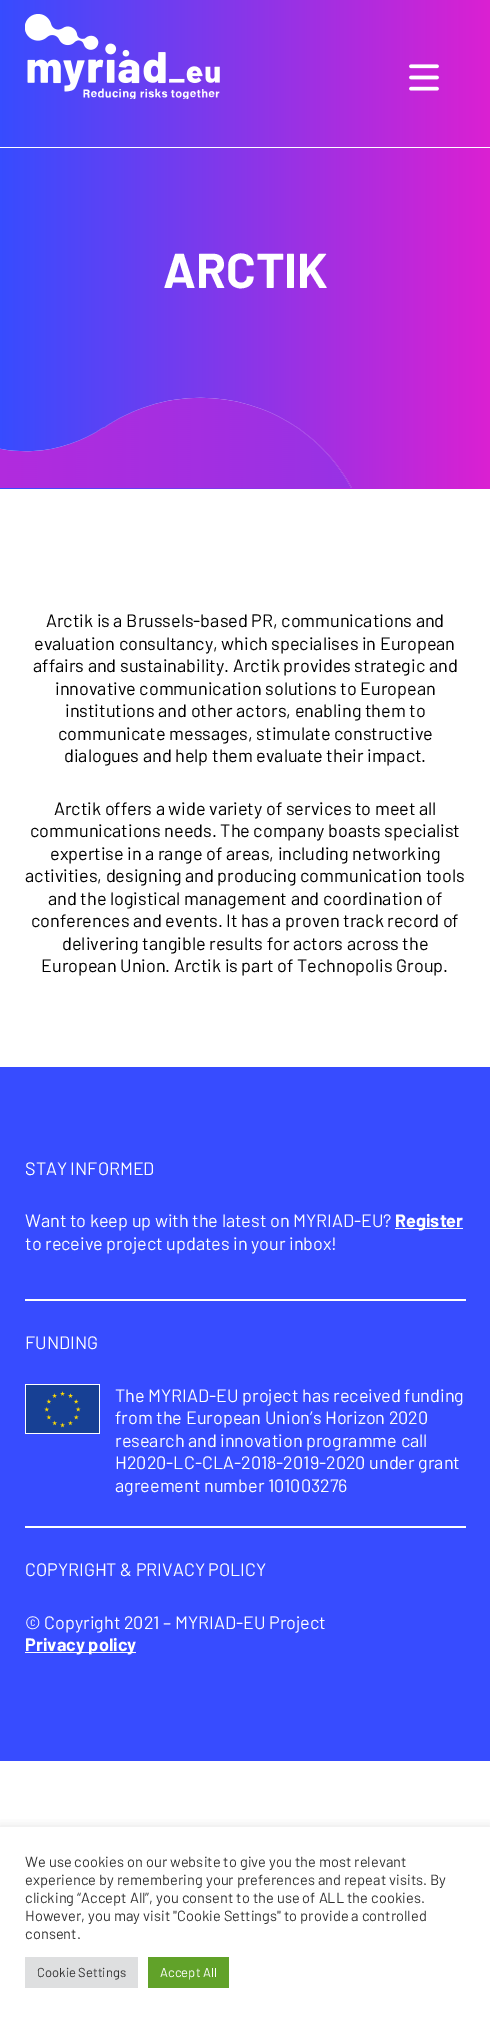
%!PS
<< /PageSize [490 2018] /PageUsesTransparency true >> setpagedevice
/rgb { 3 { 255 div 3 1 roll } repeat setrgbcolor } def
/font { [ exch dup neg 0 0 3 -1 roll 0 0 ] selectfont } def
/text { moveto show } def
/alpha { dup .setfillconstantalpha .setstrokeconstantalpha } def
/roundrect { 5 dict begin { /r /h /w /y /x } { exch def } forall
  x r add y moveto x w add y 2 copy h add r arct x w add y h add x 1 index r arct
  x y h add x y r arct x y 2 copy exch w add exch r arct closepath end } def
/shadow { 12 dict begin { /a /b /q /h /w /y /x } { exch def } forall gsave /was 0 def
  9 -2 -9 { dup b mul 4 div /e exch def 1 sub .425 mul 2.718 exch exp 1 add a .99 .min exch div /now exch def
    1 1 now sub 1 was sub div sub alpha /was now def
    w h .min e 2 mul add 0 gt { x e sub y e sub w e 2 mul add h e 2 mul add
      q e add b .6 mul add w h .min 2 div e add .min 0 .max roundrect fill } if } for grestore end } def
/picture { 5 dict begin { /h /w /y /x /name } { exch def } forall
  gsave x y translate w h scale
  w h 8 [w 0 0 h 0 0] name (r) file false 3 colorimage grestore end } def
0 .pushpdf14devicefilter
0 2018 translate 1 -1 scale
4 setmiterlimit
255 255 255 rgb
0 0 490 2018 rectfill
(img_01.rgb) 0 0 490 489 picture
(img_02.rgb) 0 397 352 91 picture
0 147 490 1 rectfill
(img_03.rgb) 25 14 195 85 picture
(img_04.rgb) 409 64 30 27 picture
55 76 255 rgb
0 1067 490 694 rectfill
255 255 255 rgb
395 1228 68 1 rectfill
25 1299 441 2 rectfill
25 1526 441 2 rectfill
(img_05.rgb) 25 1384 75 50 picture
25 1652 111 1 rectfill
gsave
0 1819 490 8 rectclip
172 171 171 rgb
0 1826 490 191 0 5 0.3 shadow
grestore
222 223 224 rgb
25 1957 113 31 rectfill
97 162 41 rgb
148 1957 81 31 rectfill
/Barlow-Bold 49 font
255 255 255 rgb
(ARCTIK) 163 288 text
/Barlow-Regular 18 font
0 0 0 rgb
(Arctik is a Brussels-based PR, communications and) 46 627 text
(evaluation consultancy, which specialises in European) 34 650 text
(affairs and sustainability. Arctik provides strategic and) 33 672 text
(innovative communication solutions to European) 55 695 text
(institutions and other actors, enabling them to) 65 717 text
(communicate messages, stimulate constructive) 58 740 text
(dialogues and help them evaluate their impact.) 64 762 text
(Arctik offers a wide variety of services to meet all) 54 815 text
(communications needs. The company boasts specialist) 30 837 text
(expertise in a range of areas, including networking) 50 860 text
(activities, designing and producing communication tools) 25 882 text
(and the logistical management and coordination of) 48 905 text
(conferences and events. It has a proven track record of) 31 927 text
(delivering tangible results for actors across the) 62 950 text
(European Union. Arctik is part of Technopolis Group.) 41 972 text
255 255 255 rgb
(STAY INFORMED) 25 1175 text
(Want to keep up with the latest on MYRIAD-EU?) 25 1227 text
/Barlow-Bold 18 font
(Register) 395 1227 text
/Barlow-Regular 18 font
(to receive project updates in your inbox!) 25 1250 text
(FUNDING) 25 1349 text
(The MYRIAD-EU project has received funding) 115 1402 text
(from the European Union’s Horizon 2020) 115 1424 text
(research and innovation programme call) 115 1447 text
(H2020-LC-CLA-2018-2019-2020 under grant) 115 1469 text
(agreement number 101003276) 115 1492 text
(COPYRIGHT & PRIVACY POLICY) 25 1576 text
(© Copyright 2021 – MYRIAD-EU Project) 25 1629 text
/Barlow-Bold 18 font
(Privacy policy) 25 1651 text
/Barlow-Regular 14.7 font
51 51 51 rgb
(We use cookies on our website to give you the most relevant) 25 1867 text
(experience by remembering your preferences and repeat visits. By) 25 1885 text
(clicking “Accept All”, you consent to the use of ALL the cookies.) 25 1903 text
(However, you may visit "Cookie Settings" to provide a controlled) 25 1921 text
(consent.) 25 1939 text
/Barlow-Regular 13 font
(Cookie Settings) 37 1977 text
255 255 255 rgb
(Accept All) 160 1977 text
.poppdf14devicefilter showpage
